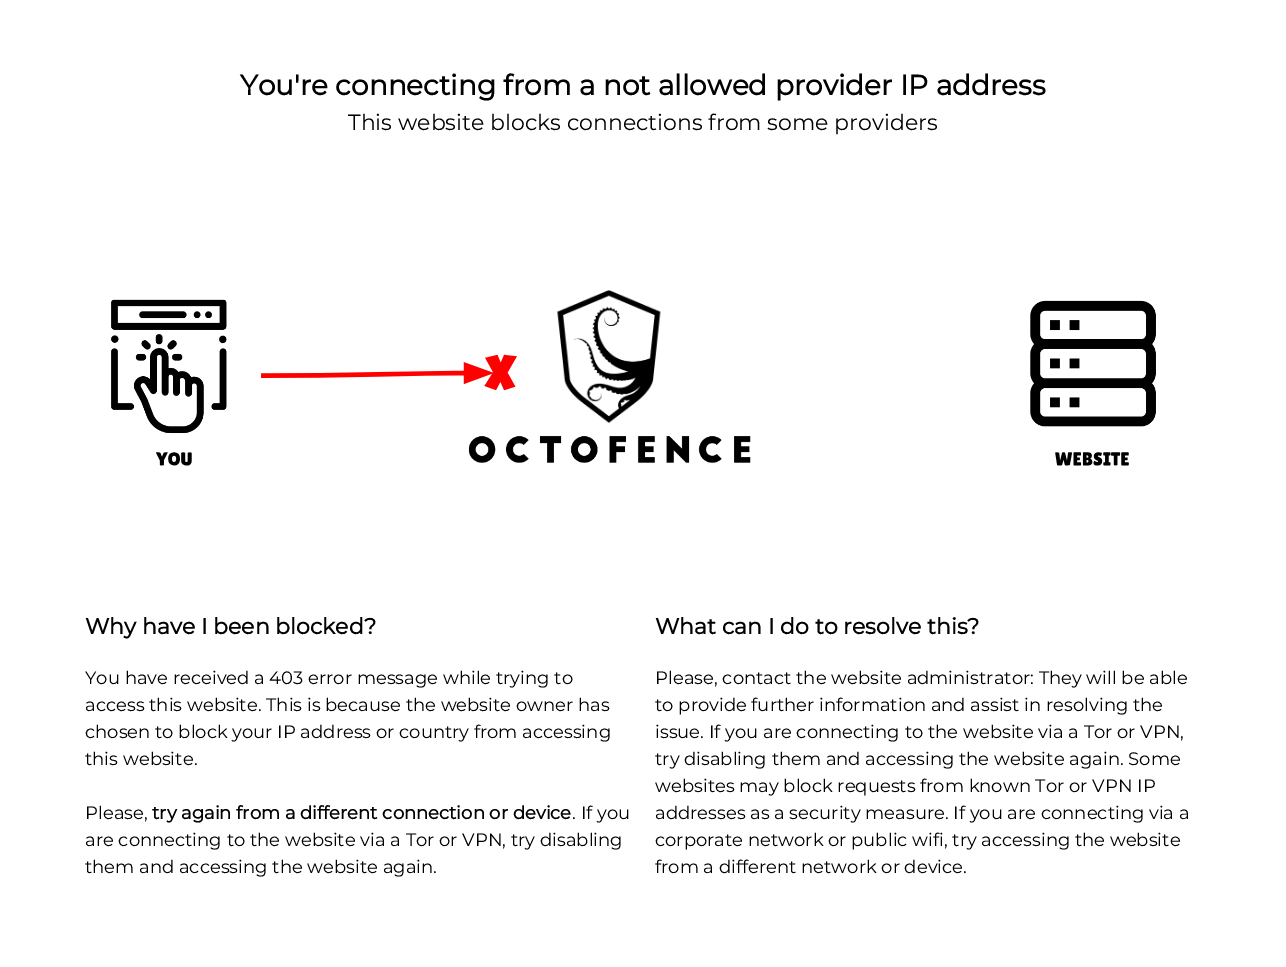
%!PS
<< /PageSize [1286 967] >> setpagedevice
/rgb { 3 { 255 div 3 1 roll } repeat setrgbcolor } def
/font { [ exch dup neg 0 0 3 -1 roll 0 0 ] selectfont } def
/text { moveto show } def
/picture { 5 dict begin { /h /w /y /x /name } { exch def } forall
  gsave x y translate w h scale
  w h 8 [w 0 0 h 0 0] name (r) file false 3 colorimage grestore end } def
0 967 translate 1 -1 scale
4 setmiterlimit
255 255 255 rgb
0 0 1286 967 rectfill
(img_01.rgb) 111 290 1045 176 picture
/Montserrat-Bold 28 font
0 0 0 rgb
(You're connecting from a not allowed provider IP address) 240 95 text
/Montserrat-Thin 22 font
(This website blocks connections from some providers) 348 130 text
/Montserrat-Bold 22 font
(Why have I been blocked?) 85 634 text
/Montserrat-Thin 18 font
(You have received a 403 error message while trying to) 85 684 text
(access this website. This is because the website owner has) 85 711 text
(chosen to block your IP address or country from accessing) 85 738 text
(this website.) 85 765 text
(Please,) 85 819 text
/Montserrat-Bold 18 font
(try again from a different connection or device) 152 819 text
/Montserrat-Thin 18 font
(. If you) 572 819 text
(are connecting to the website via a Tor or VPN, try disabling) 85 846 text
(them and accessing the website again.) 85 873 text
/Montserrat-Bold 22 font
(What can I do to resolve this?) 655 634 text
/Montserrat-Thin 18 font
(Please, contact the website administrator: They will be able) 655 684 text
(to provide further information and assist in resolving the) 655 711 text
(issue. If you are connecting to the website via a Tor or VPN,) 655 738 text
(try disabling them and accessing the website again. Some) 655 765 text
(websites may block requests from known Tor or VPN IP) 655 792 text
(addresses as a security measure. If you are connecting via a) 655 819 text
(corporate network or public wifi, try accessing the website) 655 846 text
(from a different network or device.) 655 873 text
showpage
